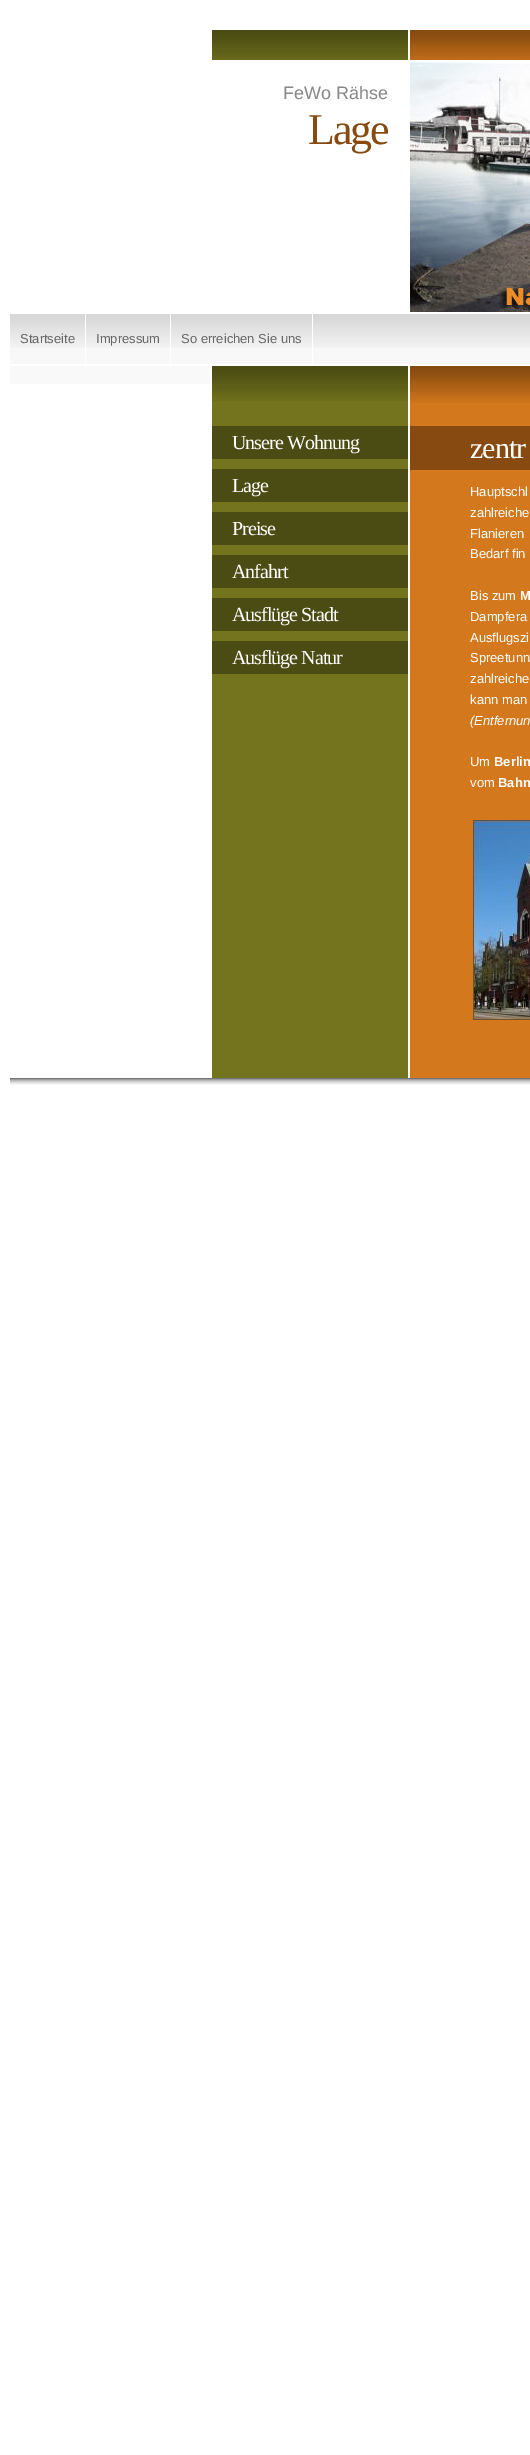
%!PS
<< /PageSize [530 2455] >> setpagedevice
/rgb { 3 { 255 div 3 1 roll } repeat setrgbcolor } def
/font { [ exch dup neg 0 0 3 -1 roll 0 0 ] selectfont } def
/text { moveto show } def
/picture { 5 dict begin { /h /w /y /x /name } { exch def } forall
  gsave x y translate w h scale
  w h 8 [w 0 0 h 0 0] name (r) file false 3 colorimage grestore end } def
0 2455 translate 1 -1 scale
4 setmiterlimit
255 255 255 rgb
0 0 530 2455 rectfill
(img_01.rgb) 212 30 196 30 picture
(img_02.rgb) 410 30 120 30 picture
(img_03.rgb) 410 62 120 250 picture
248 248 248 rgb
10 348 520 16 rectfill
(img_04.rgb) 10 314 520 34 picture
255 255 255 rgb
85 314 1 50 rectfill
170 314 1 50 rectfill
312 314 1 50 rectfill
249 249 249 rgb
10 366 200 18 rectfill
115 116 29 rgb
212 401 196 677 rectfill
(img_05.rgb) 212 366 196 35 picture
75 76 19 rgb
212 426 196 33 rectfill
212 469 196 33 rectfill
212 512 196 33 rectfill
212 555 196 33 rectfill
212 598 196 33 rectfill
212 641 196 33 rectfill
211 120 28 rgb
410 403 120 675 rectfill
(img_06.rgb) 410 366 120 37 picture
135 75 17 rgb
410 426 120 44 rectfill
(img_07.rgb) 473 820 57 200 picture
(img_08.rgb) 10 1078 200 7 picture
(img_08.rgb) 210 1078 200 7 picture
(img_09.rgb) 410 1078 120 7 picture
/LiberationSans-Regular 18 font
136 136 136 rgb
(FeWo Rähse) 283 99 text
/LiberationSerif-Regular 44 font
135 75 17 rgb
308 144 moveto -2 0 (Lage) ashow
/LiberationSans-Regular 13 font
102 102 102 rgb
(Startseite) 20 343 text
(Impressum) 96 343 text
(So erreichen Sie uns) 181 343 text
/LiberationSerif-Regular 20 font
255 255 255 rgb
232 449 moveto -1 0 (Unsere Wohnung) ashow
232 492 moveto -1 0 (Lage) ashow
232 535 moveto -1 0 (Preise) ashow
232 578 moveto -1 0 (Anfahrt) ashow
232 621 moveto -1 0 (Ausflüge Stadt) ashow
232 664 moveto -1 0 (Ausflüge Natur) ashow
/LiberationSerif-Regular 30 font
470 458 moveto -1 0 (zentr) ashow
/LiberationSans-Regular 13 font
(Hauptschl) 470 496 text
(zahlreiche) 470 517 text
(Flanieren) 470 538 text
(Bedarf fin) 470 558 text
(Bis zum) 470 600 text
/LiberationSans-Bold 13 font
(M) 520 600 text
/LiberationSans-Regular 13 font
(Dampfera) 470 621 text
(Ausflugszi) 470 642 text
(Spreetunn) 470 662 text
(zahlreiche) 470 683 text
(kann man) 470 704 text
/LiberationSans-Italic 13 font
(\(Entfernun) 470 725 text
/LiberationSans-Regular 13 font
(Um) 470 766 text
/LiberationSans-Bold 13 font
(Berlin) 494 766 text
/LiberationSans-Regular 13 font
(vom) 470 787 text
/LiberationSans-Bold 13 font
(Bahn) 498 787 text
showpage
